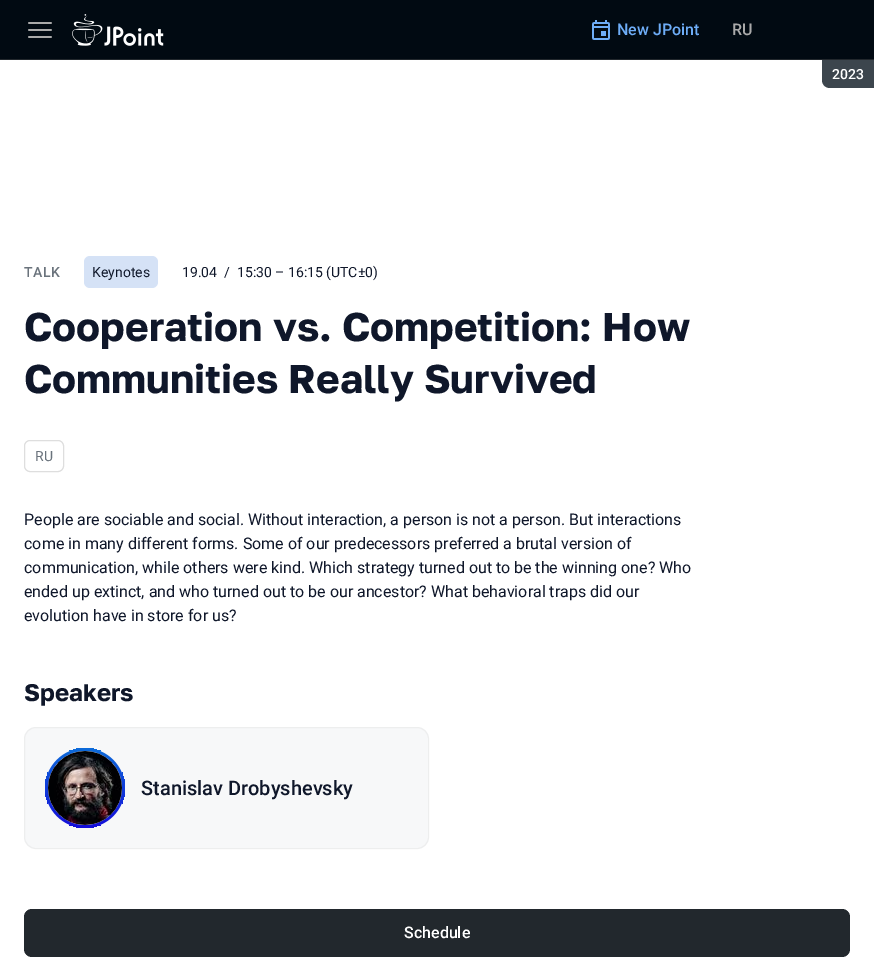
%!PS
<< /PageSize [874 976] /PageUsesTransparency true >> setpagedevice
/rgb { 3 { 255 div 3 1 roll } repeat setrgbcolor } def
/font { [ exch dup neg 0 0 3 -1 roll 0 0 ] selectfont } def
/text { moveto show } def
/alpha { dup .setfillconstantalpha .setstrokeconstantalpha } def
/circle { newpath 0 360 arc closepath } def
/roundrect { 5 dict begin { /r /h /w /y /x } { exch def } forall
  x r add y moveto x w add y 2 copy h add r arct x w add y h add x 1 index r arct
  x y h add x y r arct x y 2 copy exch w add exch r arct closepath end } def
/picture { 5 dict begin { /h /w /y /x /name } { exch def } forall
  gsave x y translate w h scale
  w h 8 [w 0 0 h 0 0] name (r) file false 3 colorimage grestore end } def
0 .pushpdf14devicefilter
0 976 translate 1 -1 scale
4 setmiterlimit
255 255 255 rgb
0 0 874 976 rectfill
1 10 18 rgb
0 0 874 59 rectfill
(img_01.rgb) 28 22 24 16 picture
(img_02.rgb) 72 14 92 32 picture
(img_03.rgb) 592 20 18 20 picture
60 69 77 rgb
822 60 moveto 52 0 rlineto 0 28 rlineto -44 0 rlineto -4.5 0 -8 -3.5 -8 -8 rcurveto closepath fill
34 40 45 rgb
0 59 874 1 rectfill
213 226 246 rgb
84 256 74 32 6 roundrect fill
222 222 222 rgb
24.5 440.5 39 31 5.5 roundrect stroke
247 248 249 rgb
24 727 405 122 12 roundrect fill
0.28 alpha
211 211 211 rgb
24.5 727.5 404 121 11.5 roundrect stroke
1 alpha
gsave 85 788 40 circle clip newpath
<< /ShadingType 2 /ColorSpace /DeviceRGB /Coords [85 748 85 828] /Extend [true true] /Function << /FunctionType 2 /Domain [0 1] /C0 [0.047 0.42 0.851] /C1 [0.078 0.047 0.851] /N 1 >> >> shfill grestore
241 241 241 rgb
85 788 37 circle fill
(img_04.rgb) 48 751 74 74 picture
34 40 45 rgb
24 909 826 48 8 roundrect fill
/Roboto-Medium 16 font
110 173 247 rgb
(New JPoint) 617 35 text
/Roboto-Medium 14 font
255 255 255 rgb
(2023) 832 79 text
/Roboto-Medium 16 font
170 170 170 rgb
(RU) 732 35 text
/Roboto-Medium 14 font
106 115 124 rgb
24 277 moveto 0.5 0 (TALK) ashow
/Roboto-Regular 14 font
15 23 42 rgb
(Keynotes) 92 277 text
(19.04) 182 277 text
(/) 224 277 text
(15:30 – 16:15 \(UTC±0\)) 237 277 text
/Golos-Bold 40 font
(Cooperation vs. Competition: How) 24 341 text
(Communities Really Survived) 24 393 text
/Roboto-Regular 14 font
106 115 124 rgb
(RU) 35 461 text
/Roboto-Regular 16 font
15 23 42 rgb
(People are sociable and social. Without interaction, a person is not a person. But interactions) 24 525 text
(come in many different forms. Some of our predecessors preferred a brutal version of) 24 549 text
(communication, while others were kind. Which strategy turned out to be the winning one? Who) 24 573 text
(ended up extinct, and who turned out to be our ancestor? What behavioral traps did our) 24 597 text
(evolution have in store for us?) 24 621 text
/Golos-Bold 24 font
(Speakers) 24 701 text
/Roboto-Medium 20 font
(Stanislav Drobyshevsky) 141 795 text
/Roboto-Medium 16 font
255 255 255 rgb
(Schedule) 404 938 text
.poppdf14devicefilter showpage
